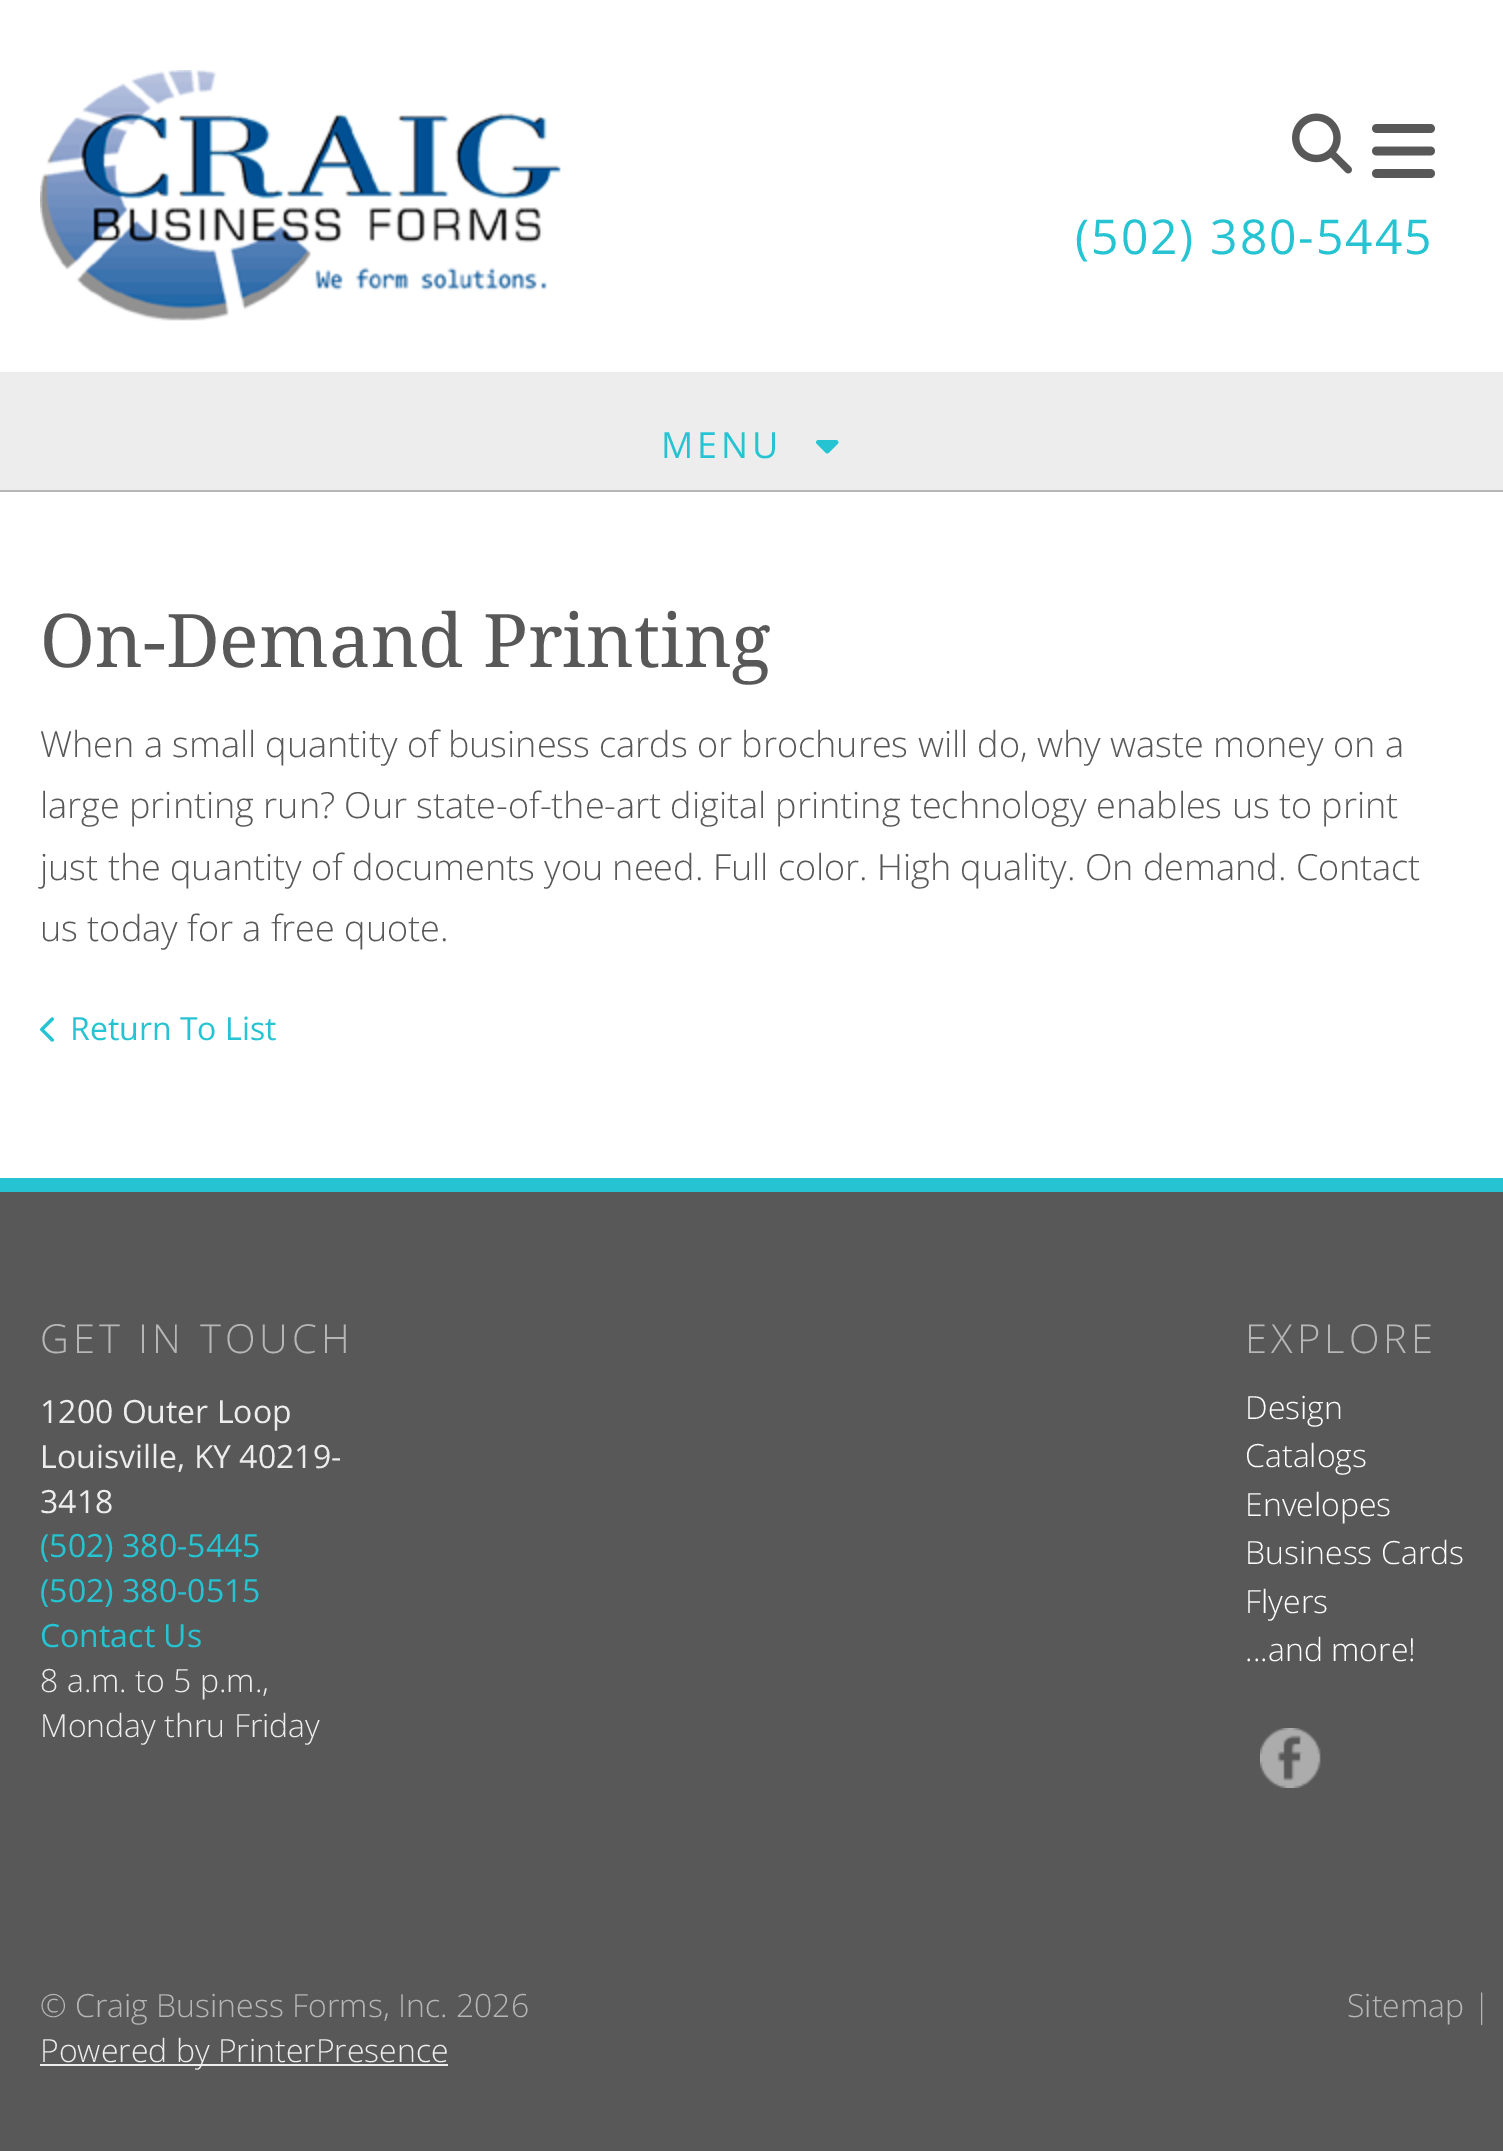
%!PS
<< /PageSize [1503 2151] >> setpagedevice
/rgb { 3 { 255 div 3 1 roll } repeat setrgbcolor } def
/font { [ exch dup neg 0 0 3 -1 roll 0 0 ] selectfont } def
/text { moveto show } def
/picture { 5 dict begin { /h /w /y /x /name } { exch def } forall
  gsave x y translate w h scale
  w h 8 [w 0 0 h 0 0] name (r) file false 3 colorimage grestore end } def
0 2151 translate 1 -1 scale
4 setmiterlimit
88 88 88 rgb
0 0 1503 2151 rectfill
255 255 255 rgb
0 0 1503 372 rectfill
(img_01.rgb) 40 70 521 251 picture
(img_02.rgb) 1292 113 60 61 picture
(img_03.rgb) 1372 124 63 54 picture
0 492 1503 686 rectfill
237 237 237 rgb
0 372 1503 118 rectfill
182 182 182 rgb
0 490 1503 2 rectfill
(img_04.rgb) 816 440 23 14 picture
(img_05.rgb) 40 1017 14 25 picture
38 196 210 rgb
0 1178 1503 14 rectfill
(img_06.rgb) 1260 1728 61 60 picture
237 237 237 rgb
40 2064 408 2 rectfill
/OpenSans-Regular 48 font
38 196 210 rgb
1075 254 moveto 2 0 (\(502\) 380-5445) ashow
/OpenSans-Regular 36 font
661 458 moveto 4 0 (MENU) ashow
/NotoSerif-Regular 74 font
88 88 88 rgb
(On-Demand Printing) 40 667 text
/OpenSans-Light 36 font
(When a small quantity of business cards or brochures will do, why waste money on a) 40 757 text
(large printing run? Our state-of-the-art digital printing technology enables us to print) 40 818 text
(just the quantity of documents you need. Full color. High quality. On demand. Contact) 40 880 text
(us today for a free quote.) 40 941 text
/OpenSans-Regular 32 font
38 196 210 rgb
(Return To List) 70 1040 text
/OpenSans-Light 40 font
182 182 182 rgb
40 1353 moveto 4 0 (GET IN TOUCH) ashow
/OpenSans-Regular 32 font
237 237 237 rgb
(1200 Outer Loop) 40 1423 text
(Louisville, KY 40219-) 40 1468 text
(3418) 40 1513 text
38 196 210 rgb
(\(502\) 380-5445) 40 1557 text
(\(502\) 380-0515) 40 1602 text
(Contact Us) 40 1647 text
/OpenSans-Light 32 font
237 237 237 rgb
(8 a.m. to 5 p.m.,) 40 1692 text
(Monday thru Friday) 40 1737 text
/OpenSans-Light 40 font
182 182 182 rgb
1245 1353 moveto 4 0 (EXPLORE) ashow
/OpenSans-Light 32 font
255 255 255 rgb
(Design) 1245 1419 text
(Catalogs) 1245 1467 text
(Envelopes) 1245 1516 text
(Business Cards) 1245 1564 text
(Flyers) 1245 1613 text
(...and more!) 1245 1661 text
182 182 182 rgb
(© Craig Business Forms, Inc. 2026) 40 2017 text
237 237 237 rgb
(Powered by PrinterPresence) 40 2062 text
182 182 182 rgb
(Sitemap) 1347 2017 text
(|) 1473 2017 text
showpage
